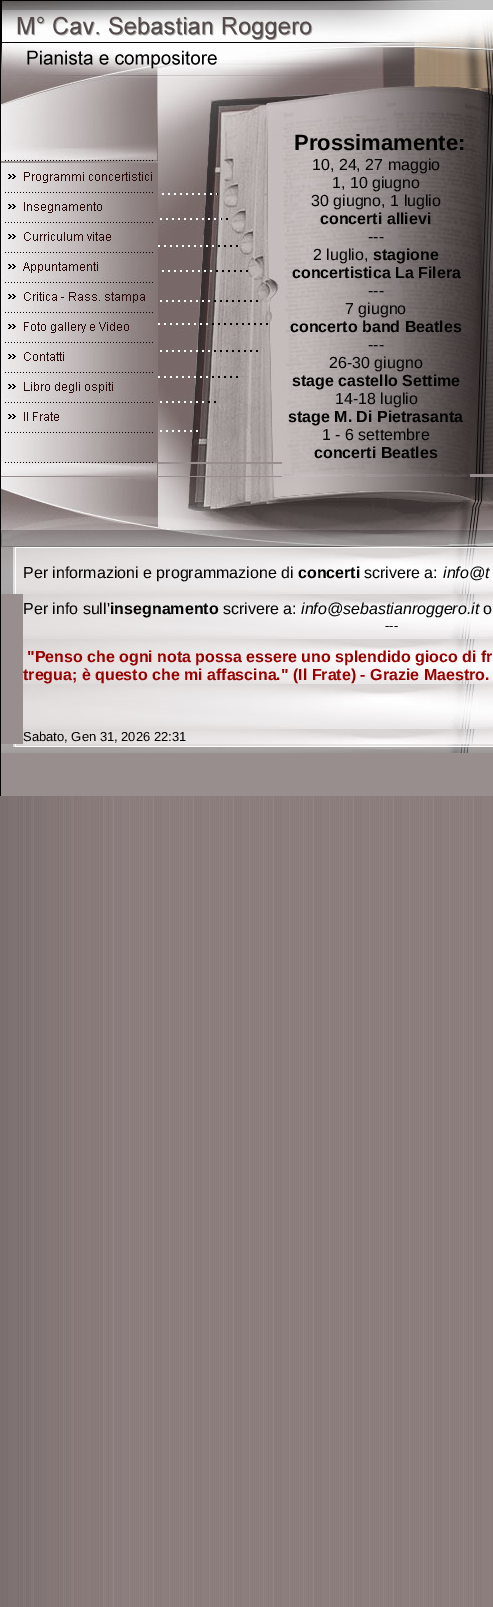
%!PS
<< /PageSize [493 1607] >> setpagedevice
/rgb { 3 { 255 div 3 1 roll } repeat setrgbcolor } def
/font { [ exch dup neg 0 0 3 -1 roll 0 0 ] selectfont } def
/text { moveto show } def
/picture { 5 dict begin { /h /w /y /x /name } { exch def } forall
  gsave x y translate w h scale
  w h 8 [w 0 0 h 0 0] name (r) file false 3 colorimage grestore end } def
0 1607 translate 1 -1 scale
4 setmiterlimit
255 255 255 rgb
0 0 493 1607 rectfill
(img_01.rgb) 0 796 493 811 picture
152 142 141 rgb
1 161 492 635 rectfill
0 0 0 rgb
0 0 1 796 rectfill
(img_02.rgb) 1 0 492 10 picture
(img_03.rgb) 1 10 492 32 picture
(img_04.rgb) 1 42 492 33 picture
(img_05.rgb) 1 75 492 40 picture
(img_06.rgb) 1 163 157 301 picture
(img_07.rgb) 8 172 144 11 picture
(img_08.rgb) 8 202 94 11 picture
(img_09.rgb) 8 232 103 9 picture
(img_10.rgb) 8 262 90 11 picture
(img_11.rgb) 8 292 137 11 picture
(img_12.rgb) 8 322 121 11 picture
(img_13.rgb) 8 352 56 9 picture
(img_14.rgb) 8 382 105 11 picture
(img_15.rgb) 8 412 51 9 picture
(img_16.rgb) 1 115 157 46 picture
(img_17.rgb) 158 115 124 347 picture
(img_18.rgb) 282 115 188 362 picture
(img_19.rgb) 470 115 23 359 picture
(img_20.rgb) 1 464 281 12 picture
(img_21.rgb) 1 477 492 11 picture
(img_22.rgb) 1 488 492 41 picture
(img_23.rgb) 1 529 430 20 picture
(img_24.rgb) 431 529 62 20 picture
(img_25.rgb) 1 549 22 45 picture
(img_26.rgb) 23 549 470 195 picture
(img_27.rgb) 1 744 492 12 picture
/LiberationSans-Bold 22 font
(Prossimamente:) 294 150 text
/LiberationSans-Regular 16 font
(10, 24, 27 maggio) 312 170 text
(1, 10 giugno) 332 188 text
(30 giugno, 1 luglio) 311 206 text
/LiberationSans-Bold 16 font
(concerti allievi) 320 224 text
/LiberationSans-Regular 16 font
(---) 368 242 text
(2 luglio,) 313 260 text
/LiberationSans-Bold 16 font
(stagione) 373 260 text
(concertistica La Filera) 292 278 text
/LiberationSans-Regular 16 font
(---) 368 296 text
(7 giugno) 345 314 text
/LiberationSans-Bold 16 font
(concerto band Beatles) 290 332 text
/LiberationSans-Regular 16 font
(---) 368 350 text
(26-30 giugno) 329 368 text
/LiberationSans-Bold 16 font
(stage castello Settime) 292 386 text
/LiberationSans-Regular 16 font
(14-18 luglio) 335 404 text
/LiberationSans-Bold 16 font
(stage M. Di Pietrasanta) 288 422 text
/LiberationSans-Regular 16 font
(1 - 6 settembre) 322 440 text
/LiberationSans-Bold 16 font
(concerti Beatles) 314 458 text
/LiberationSans-Regular 16 font
(Per informazioni e programmazione di) 23 578 text
/LiberationSans-Bold 16 font
(concerti) 298 578 text
/LiberationSans-Regular 16 font
(scrivere a:) 364 578 text
/LiberationSans-Italic 16 font
(info@t) 443 578 text
/LiberationSans-Regular 16 font
(Per info sull') 23 614 text
/LiberationSans-Bold 16 font
(insegnamento) 110 614 text
/LiberationSans-Regular 16 font
(scrivere a:) 223 614 text
/LiberationSans-Italic 16 font
(info@sebastianroggero.it) 301 614 text
/LiberationSans-Regular 16 font
(o) 483 614 text
/LiberationSans-Regular 13 font
(---) 385 630 text
/LiberationSans-Bold 16 font
153 0 0 rgb
("Penso che ogni nota possa essere uno splendido gioco di fr) 27 662 text
(tregua; è questo che mi affascina." \(Il Frate\) - Grazie Maestro.) 23 680 text
/LiberationSans-Regular 13 font
0 0 0 rgb
(Sabato, Gen 31, 2026 22:31) 23 741 text
showpage
